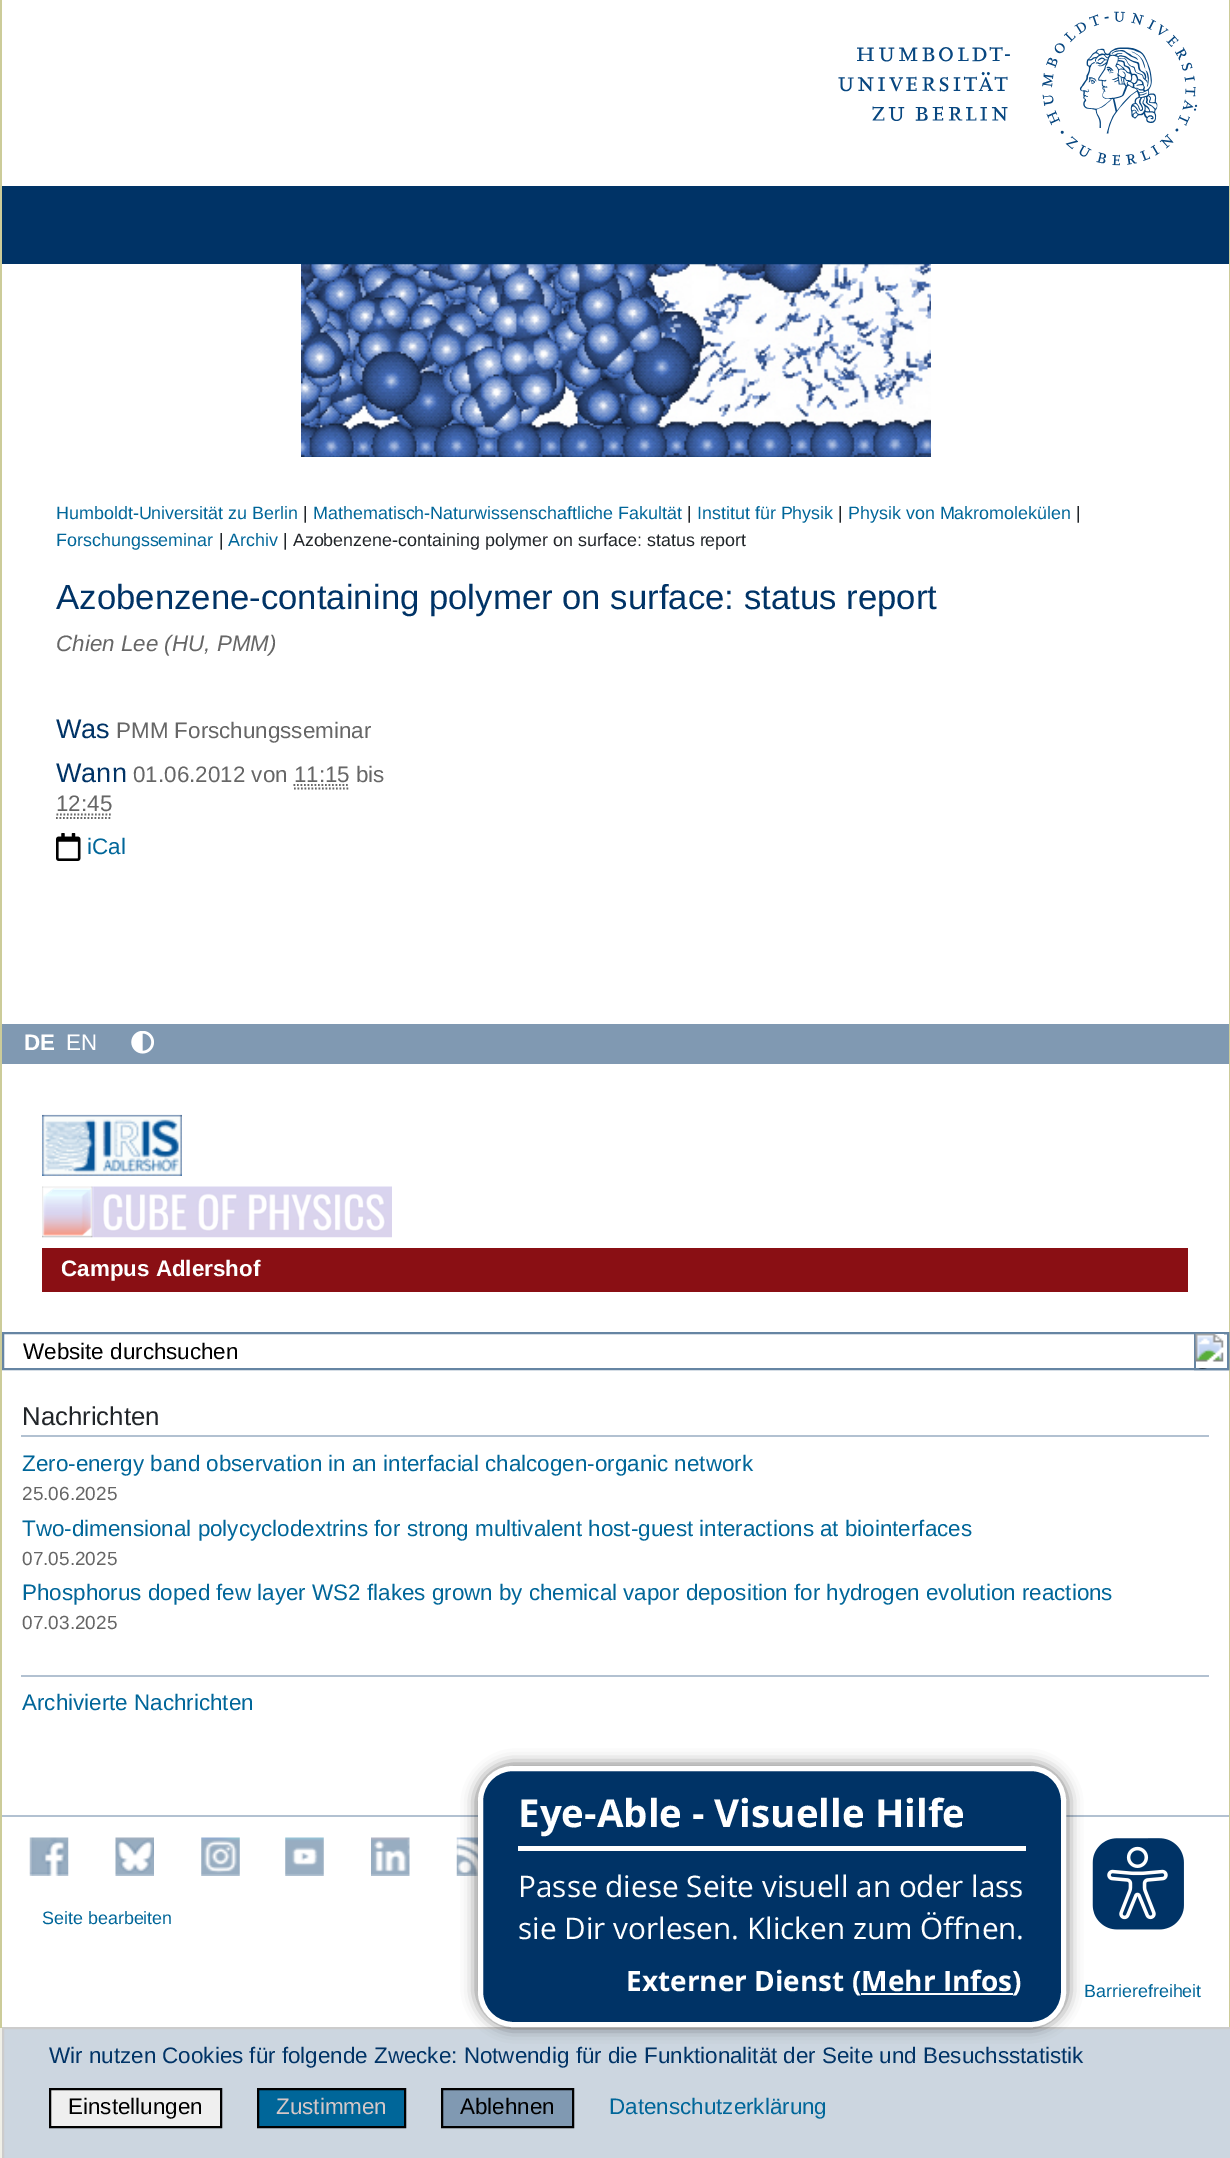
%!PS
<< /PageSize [1230 2158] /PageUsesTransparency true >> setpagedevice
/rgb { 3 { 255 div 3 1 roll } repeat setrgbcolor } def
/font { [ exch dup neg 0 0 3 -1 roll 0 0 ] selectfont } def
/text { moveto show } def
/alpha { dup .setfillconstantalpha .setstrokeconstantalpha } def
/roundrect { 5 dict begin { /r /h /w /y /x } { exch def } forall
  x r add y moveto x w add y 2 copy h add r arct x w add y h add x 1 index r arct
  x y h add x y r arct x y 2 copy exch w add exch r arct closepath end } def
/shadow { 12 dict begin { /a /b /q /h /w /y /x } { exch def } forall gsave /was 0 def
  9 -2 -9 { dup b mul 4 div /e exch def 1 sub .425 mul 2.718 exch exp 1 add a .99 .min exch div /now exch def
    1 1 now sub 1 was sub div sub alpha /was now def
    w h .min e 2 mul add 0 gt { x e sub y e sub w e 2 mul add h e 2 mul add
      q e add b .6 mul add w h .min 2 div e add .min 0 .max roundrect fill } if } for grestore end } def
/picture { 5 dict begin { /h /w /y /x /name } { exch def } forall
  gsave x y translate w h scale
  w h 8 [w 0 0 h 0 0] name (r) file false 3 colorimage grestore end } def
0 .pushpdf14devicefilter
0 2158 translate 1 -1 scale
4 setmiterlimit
240 240 232 rgb
0 0 1230 2158 rectfill
255 255 255 rgb
2 0 1227 2027 rectfill
(img_01.rgb) 838 11 360 155 picture
0 51 102 rgb
2 186 1227 78 rectfill
(img_02.rgb) 301 264 630 193 picture
204 204 153 rgb
1229 0 1 2028 rectfill
0 0 2 2028 rectfill
102 102 102 rgb
1.8 setlinewidth
[1.75 1.75] 0 setdash
294 788.5 moveto 56 0 rlineto 293.5 785 moveto 56 0 rlineto stroke
56 818 moveto 56 0 rlineto 56.5 814.5 moveto 56 0 rlineto stroke
(img_03.rgb) 56 833 25 28 picture
128 153 178 rgb
2 1024 1227 40 rectfill
(img_04.rgb) 131 1031 23 23 picture
(img_05.rgb) 42 1114 140 62 picture
(img_06.rgb) 42 1186 350 52 picture
138 15 20 rgb
42 1248 1146 44 rectfill
102 133 163 rgb
2 setlinewidth
[] 0 setdash
3 1333 1225 36 rectstroke
1195 1333 33 36 rectstroke
(img_07.rgb) 1195 1333 29 36 picture
178 193 209 rgb
21 1435 1188 2 rectfill
21 1675 1188 2 rectfill
2 1815 1227 2 rectfill
(img_14.rgb) 456 1837 22 39 picture
204 214 224 rgb
3 2028 moveto 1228 0 rlineto 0 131 rlineto -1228 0 rlineto closepath gsave fill grestore
204 204 204 rgb
stroke
0 0 0 rgb
476 1764 592 264 37 7 0.5 shadow
0 51 102 rgb
480.5 1768.5 583 256 32.5 roundrect gsave fill grestore
255 255 255 rgb
5 setlinewidth
stroke
518 1846 508 5 rectfill
861 1993 152 2 rectfill
(img_08.rgb) 1092 1838 92 92 picture
(img_09.rgb) 29 1837 40 39 picture
(img_10.rgb) 115 1837 39 39 picture
(img_11.rgb) 201 1837 39 39 picture
(img_12.rgb) 285 1837 39 39 picture
(img_13.rgb) 371 1837 39 39 picture
239 239 239 rgb
50 2089 moveto 171 0 rlineto 0 38 rlineto -171 0 rlineto closepath gsave fill grestore
0 0 0 rgb
2 setlinewidth
stroke
0 102 153 rgb
258 2089 moveto 147 0 rlineto 0 38 rlineto -147 0 rlineto closepath gsave fill grestore
0 0 0 rgb
stroke
128 153 178 rgb
442 2089 moveto 131 0 rlineto 0 38 rlineto -131 0 rlineto closepath gsave fill grestore
0 0 0 rgb
stroke
/LiberationSans-Regular 17.9 font
0 102 153 rgb
(Humboldt-Universität zu Berlin) 56 519 text
33 37 41 rgb
(|) 303 519 text
0 102 153 rgb
(Mathematisch-Naturwissenschaftliche Fakultät) 313 519 text
33 37 41 rgb
(|) 687 519 text
0 102 153 rgb
(Institut für Physik) 697 519 text
33 37 41 rgb
(|) 838 519 text
0 102 153 rgb
(Physik von Makromolekülen) 848 519 text
33 37 41 rgb
(|) 1076 519 text
0 102 153 rgb
(Forschungsseminar) 56 546 text
33 37 41 rgb
(|) 219 546 text
0 102 153 rgb
(Archiv) 228 546 text
33 37 41 rgb
(| Azobenzene-containing polymer on surface: status report) 283 546 text
/LiberationSans-Regular 34.75 font
0 51 102 rgb
(Azobenzene-containing polymer on surface: status report) 56 609 text
/LiberationSans-Italic 22.4 font
102 102 102 rgb
(Chien Lee \(HU, PMM\)) 56 651 text
/LiberationSans-Regular 27 font
0 51 102 rgb
(Was) 56 738 text
/LiberationSans-Regular 22.4 font
102 102 102 rgb
(PMM Forschungsseminar) 116 738 text
/LiberationSans-Regular 27 font
0 51 102 rgb
(Wann) 56 782 text
/LiberationSans-Regular 22.4 font
102 102 102 rgb
(01.06.2012 von 11:15 bis) 133 782 text
(12:45) 56 811 text
0 102 153 rgb
(iCal) 87 854 text
/LiberationSans-Bold 22.4 font
255 255 255 rgb
(DE) 24 1050 text
/LiberationSans-Regular 22.4 font
(EN) 66 1050 text
/LiberationSans-Bold 22.4 font
(Campus Adlershof) 61 1276 text
/LiberationSans-Regular 22.4 font
0 0 0 rgb
(Website durchsuchen) 23 1359 text
/LiberationSans-Regular 25.75 font
33 37 41 rgb
(Nachrichten) 22 1425 text
/LiberationSans-Regular 22.4 font
0 102 153 rgb
(Zero-energy band observation in an interfacial chalcogen-organic network) 22 1471 text
/LiberationSans-Regular 19 font
102 102 102 rgb
(25.06.2025) 22 1500 text
/LiberationSans-Regular 22.4 font
0 102 153 rgb
(Two-dimensional polycyclodextrins for strong multivalent host-guest interactions at biointerfaces) 22 1536 text
/LiberationSans-Regular 19 font
102 102 102 rgb
(07.05.2025) 22 1565 text
/LiberationSans-Regular 22.4 font
0 102 153 rgb
(Phosphorus doped few layer WS2 flakes grown by chemical vapor deposition for hydrogen evolution reactions) 22 1600 text
/LiberationSans-Regular 19 font
102 102 102 rgb
(07.03.2025) 22 1629 text
/LiberationSans-Regular 22.4 font
0 102 153 rgb
(Archivierte Nachrichten) 22 1710 text
/OpenSans-Bold 38.5 font
255 255 255 rgb
(Eye-Able - Visuelle Hilfe) 518 1827 text
/OpenSans-Regular 29.75 font
(Passe diese Seite visuell an oder lass) 518 1897 text
(sie Dir vorlesen. Klicken zum Öffnen.) 518 1939 text
/OpenSans-Bold 28 font
(Externer Dienst \(Mehr Infos\)) 626 1991 text
/LiberationSans-Regular 17.9 font
0 102 153 rgb
(Seite bearbeiten) 42 1924 text
(Barrierefreiheit) 1084 1997 text
/LiberationSans-Regular 22.4 font
0 51 102 rgb
(Wir nutzen Cookies für folgende Zwecke: Notwendig für die Funktionalität der Seite und Besuchsstatistik) 49 2063 text
0 0 0 rgb
(Einstellungen) 68 2114 text
213 199 199 rgb
(Zustimmen) 276 2114 text
0 0 0 rgb
(Ablehnen) 460 2114 text
0 102 153 rgb
(Datenschutzerklärung) 609 2114 text
.poppdf14devicefilter showpage
